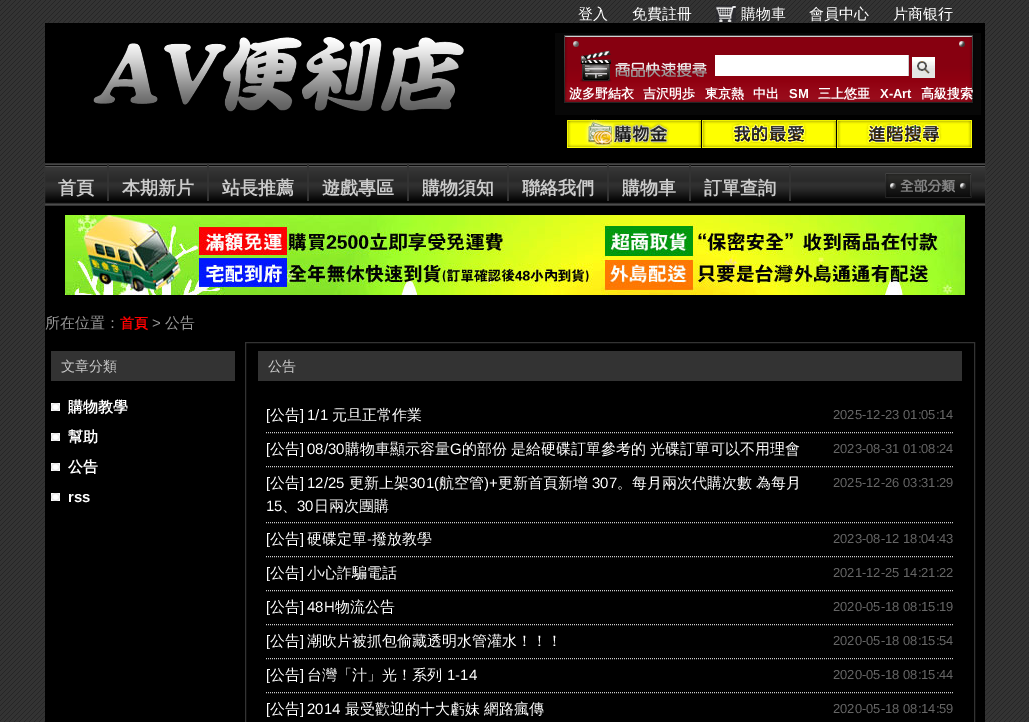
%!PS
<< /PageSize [1029 722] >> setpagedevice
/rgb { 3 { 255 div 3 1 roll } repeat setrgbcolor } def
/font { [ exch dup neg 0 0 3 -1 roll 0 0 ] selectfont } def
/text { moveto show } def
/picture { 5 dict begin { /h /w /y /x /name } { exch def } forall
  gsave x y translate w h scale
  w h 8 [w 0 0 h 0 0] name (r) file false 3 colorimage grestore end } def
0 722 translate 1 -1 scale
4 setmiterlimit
255 255 255 rgb
0 0 1029 722 rectfill
(img_01.rgb) 0 0 1029 722 picture
(img_02.rgb) 716 5 20 17 picture
0 0 0 rgb
45 23 940 140 rectfill
(img_03.rgb) 555 33 426 82 picture
(img_04.rgb) 93 37 371 75 picture
255 255 255 rgb
715 55 193 21 rectfill
204 204 204 rgb
908 55 1 21 rectfill
(img_05.rgb) 912 57 23 21 picture
(img_06.rgb) 567 119 134 29 picture
(img_07.rgb) 702 120 134 28 picture
(img_08.rgb) 837 120 135 28 picture
(img_09.rgb) 45 164 940 41 picture
51 51 51 rgb
44.5 163.5 941 42 rectstroke
107 164 2 37 rectfill
207 164 2 37 rectfill
307 164 2 37 rectfill
407 164 2 37 rectfill
507 164 2 37 rectfill
607 164 2 37 rectfill
689 164 2 37 rectfill
789 164 2 37 rectfill
(img_10.rgb) 885 173 87 25 picture
0 0 0 rgb
45 206 940 516 rectfill
(img_11.rgb) 65 215 900 80 picture
51 51 51 rgb
51 351 184 30 rectfill
(img_12.rgb) 51 403 9 8 picture
(img_12.rgb) 51 433 9 8 picture
(img_12.rgb) 51 463 9 8 picture
(img_12.rgb) 51 493 9 8 picture
245.5 342.5 729 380 rectstroke
258 351 704 30 rectfill
204 204 204 rgb
[1 1] 0 setdash
266 432.5 moveto 688 0 rlineto stroke
266 466.5 moveto 688 0 rlineto stroke
266 522.5 moveto 688 0 rlineto stroke
266 556.5 moveto 688 0 rlineto stroke
266 590.5 moveto 688 0 rlineto stroke
266 624.5 moveto 688 0 rlineto stroke
266 658.5 moveto 688 0 rlineto stroke
266 692.5 moveto 688 0 rlineto stroke
/WenQuanYiZenHei-Medium 15 font
255 255 255 rgb
(登入) 578 19 text
(免費註冊) 632 19 text
(購物車) 741 19 text
(會員中心) 809 19 text
(片商银行) 893 19 text
/WenQuanYiZenHei-Bold 13 font
(波多野結衣) 569 98 text
(吉沢明歩) 643 98 text
(東京熱) 705 98 text
(中出) 753 98 text
/LiberationSans-Bold 13 font
(SM) 789 98 text
/WenQuanYiZenHei-Bold 13 font
(三上悠亜) 818 98 text
/LiberationSans-Bold 13 font
(X-Art) 880 98 text
/WenQuanYiZenHei-Bold 13 font
(高級搜索) 921 98 text
/WenQuanYiZenHei-Bold 18 font
204 204 204 rgb
(首頁) 58 194 text
(本期新片) 122 194 text
(站長推薦) 222 194 text
(遊戲專區) 322 194 text
(購物須知) 422 194 text
(聯絡我們) 522 194 text
(購物車) 622 194 text
(訂單查詢) 704 194 text
/WenQuanYiZenHei-Medium 15 font
153 153 153 rgb
(所在位置：) 45 328 text
/WenQuanYiZenHei-Bold 14 font
255 0 0 rgb
(首頁) 120 328 text
/LiberationSans-Regular 15 font
153 153 153 rgb
(>) 152 328 text
/WenQuanYiZenHei-Medium 15 font
(公告) 165 328 text
/WenQuanYiZenHei-Medium 14 font
204 204 204 rgb
(文章分類) 61 371 text
/WenQuanYiZenHei-Bold 15 font
255 255 255 rgb
(購物教學) 68 412 text
(幫助) 68 442 text
(公告) 68 472 text
/LiberationSans-Bold 15 font
(rss) 68 502 text
/WenQuanYiZenHei-Medium 14 font
204 204 204 rgb
(公告) 268 371 text
/LiberationSans-Regular 15 font
255 255 255 rgb
([) 266 420 text
/WenQuanYiZenHei-Medium 15 font
(公告) 270 420 text
/LiberationSans-Regular 15 font
(]) 300 420 text
(1/1) 307 420 text
/WenQuanYiZenHei-Medium 15 font
(元旦正常作業) 332 420 text
/LiberationSans-Regular 13 font
102 102 102 rgb
(2025-12-23 01:05:14) 833 419 text
/LiberationSans-Regular 15 font
255 255 255 rgb
([) 266 454 text
/WenQuanYiZenHei-Medium 15 font
(公告) 270 454 text
/LiberationSans-Regular 15 font
(]) 300 454 text
(08/30) 307 454 text
/WenQuanYiZenHei-Medium 15 font
(購物車顯示容量) 345 454 text
/LiberationSans-Regular 15 font
(G) 450 454 text
/WenQuanYiZenHei-Medium 15 font
(的部份) 462 454 text
(是給硬碟訂單參考的) 511 454 text
(光碟訂單可以不用理會) 650 454 text
/LiberationSans-Regular 13 font
102 102 102 rgb
(2023-08-31 01:08:24) 833 453 text
/LiberationSans-Regular 15 font
255 255 255 rgb
([) 266 488 text
/WenQuanYiZenHei-Medium 15 font
(公告) 270 488 text
/LiberationSans-Regular 15 font
(]) 300 488 text
(12/25) 307 488 text
/WenQuanYiZenHei-Medium 15 font
(更新上架) 349 488 text
/LiberationSans-Regular 15 font
(301\() 409 488 text
/WenQuanYiZenHei-Medium 15 font
(航空管) 439 488 text
/LiberationSans-Regular 15 font
(\)+) 484 488 text
/WenQuanYiZenHei-Medium 15 font
(更新首頁新增) 498 488 text
/LiberationSans-Regular 15 font
(307) 592 488 text
/WenQuanYiZenHei-Medium 15 font
(。每月兩次代購次數 為每月) 617 488 text
/LiberationSans-Regular 13 font
102 102 102 rgb
(2025-12-26 03:31:29) 833 487 text
/LiberationSans-Regular 15 font
255 255 255 rgb
(15) 266 511 text
/WenQuanYiZenHei-Medium 15 font
(、) 282 511 text
/LiberationSans-Regular 15 font
(30) 297 511 text
/WenQuanYiZenHei-Medium 15 font
(日兩次團購) 314 511 text
/LiberationSans-Regular 15 font
([) 266 544 text
/WenQuanYiZenHei-Medium 15 font
(公告) 270 544 text
/LiberationSans-Regular 15 font
(]) 300 544 text
/WenQuanYiZenHei-Medium 15 font
(硬碟定單) 307 544 text
/LiberationSans-Regular 15 font
(-) 367 544 text
/WenQuanYiZenHei-Medium 15 font
(撥放教學) 372 544 text
/LiberationSans-Regular 13 font
102 102 102 rgb
(2023-08-12 18:04:43) 833 543 text
/LiberationSans-Regular 15 font
255 255 255 rgb
([) 266 578 text
/WenQuanYiZenHei-Medium 15 font
(公告) 270 578 text
/LiberationSans-Regular 15 font
(]) 300 578 text
/WenQuanYiZenHei-Medium 15 font
(小心詐騙電話) 307 578 text
/LiberationSans-Regular 13 font
102 102 102 rgb
(2021-12-25 14:21:22) 833 577 text
/LiberationSans-Regular 15 font
255 255 255 rgb
([) 266 612 text
/WenQuanYiZenHei-Medium 15 font
(公告) 270 612 text
/LiberationSans-Regular 15 font
(]) 300 612 text
(48H) 307 612 text
/WenQuanYiZenHei-Medium 15 font
(物流公告) 335 612 text
/LiberationSans-Regular 13 font
102 102 102 rgb
(2020-05-18 08:15:19) 833 611 text
/LiberationSans-Regular 15 font
255 255 255 rgb
([) 266 646 text
/WenQuanYiZenHei-Medium 15 font
(公告) 270 646 text
/LiberationSans-Regular 15 font
(]) 300 646 text
/WenQuanYiZenHei-Medium 15 font
(潮吹片被抓包偷藏透明水管灌水！！！) 307 646 text
/LiberationSans-Regular 13 font
102 102 102 rgb
(2020-05-18 08:15:54) 833 645 text
/LiberationSans-Regular 15 font
255 255 255 rgb
([) 266 680 text
/WenQuanYiZenHei-Medium 15 font
(公告) 270 680 text
/LiberationSans-Regular 15 font
(]) 300 680 text
/WenQuanYiZenHei-Medium 15 font
(台灣「汁」光！系列) 307 680 text
/LiberationSans-Regular 15 font
(1-14) 447 680 text
/LiberationSans-Regular 13 font
102 102 102 rgb
(2020-05-18 08:15:44) 833 679 text
/LiberationSans-Regular 15 font
255 255 255 rgb
([) 266 714 text
/WenQuanYiZenHei-Medium 15 font
(公告) 270 714 text
/LiberationSans-Regular 15 font
(]) 300 714 text
(2014) 307 714 text
/WenQuanYiZenHei-Medium 15 font
(最受歡迎的十大虧妹 網路瘋傳) 345 714 text
/LiberationSans-Regular 13 font
102 102 102 rgb
(2020-05-18 08:14:59) 833 713 text
showpage
